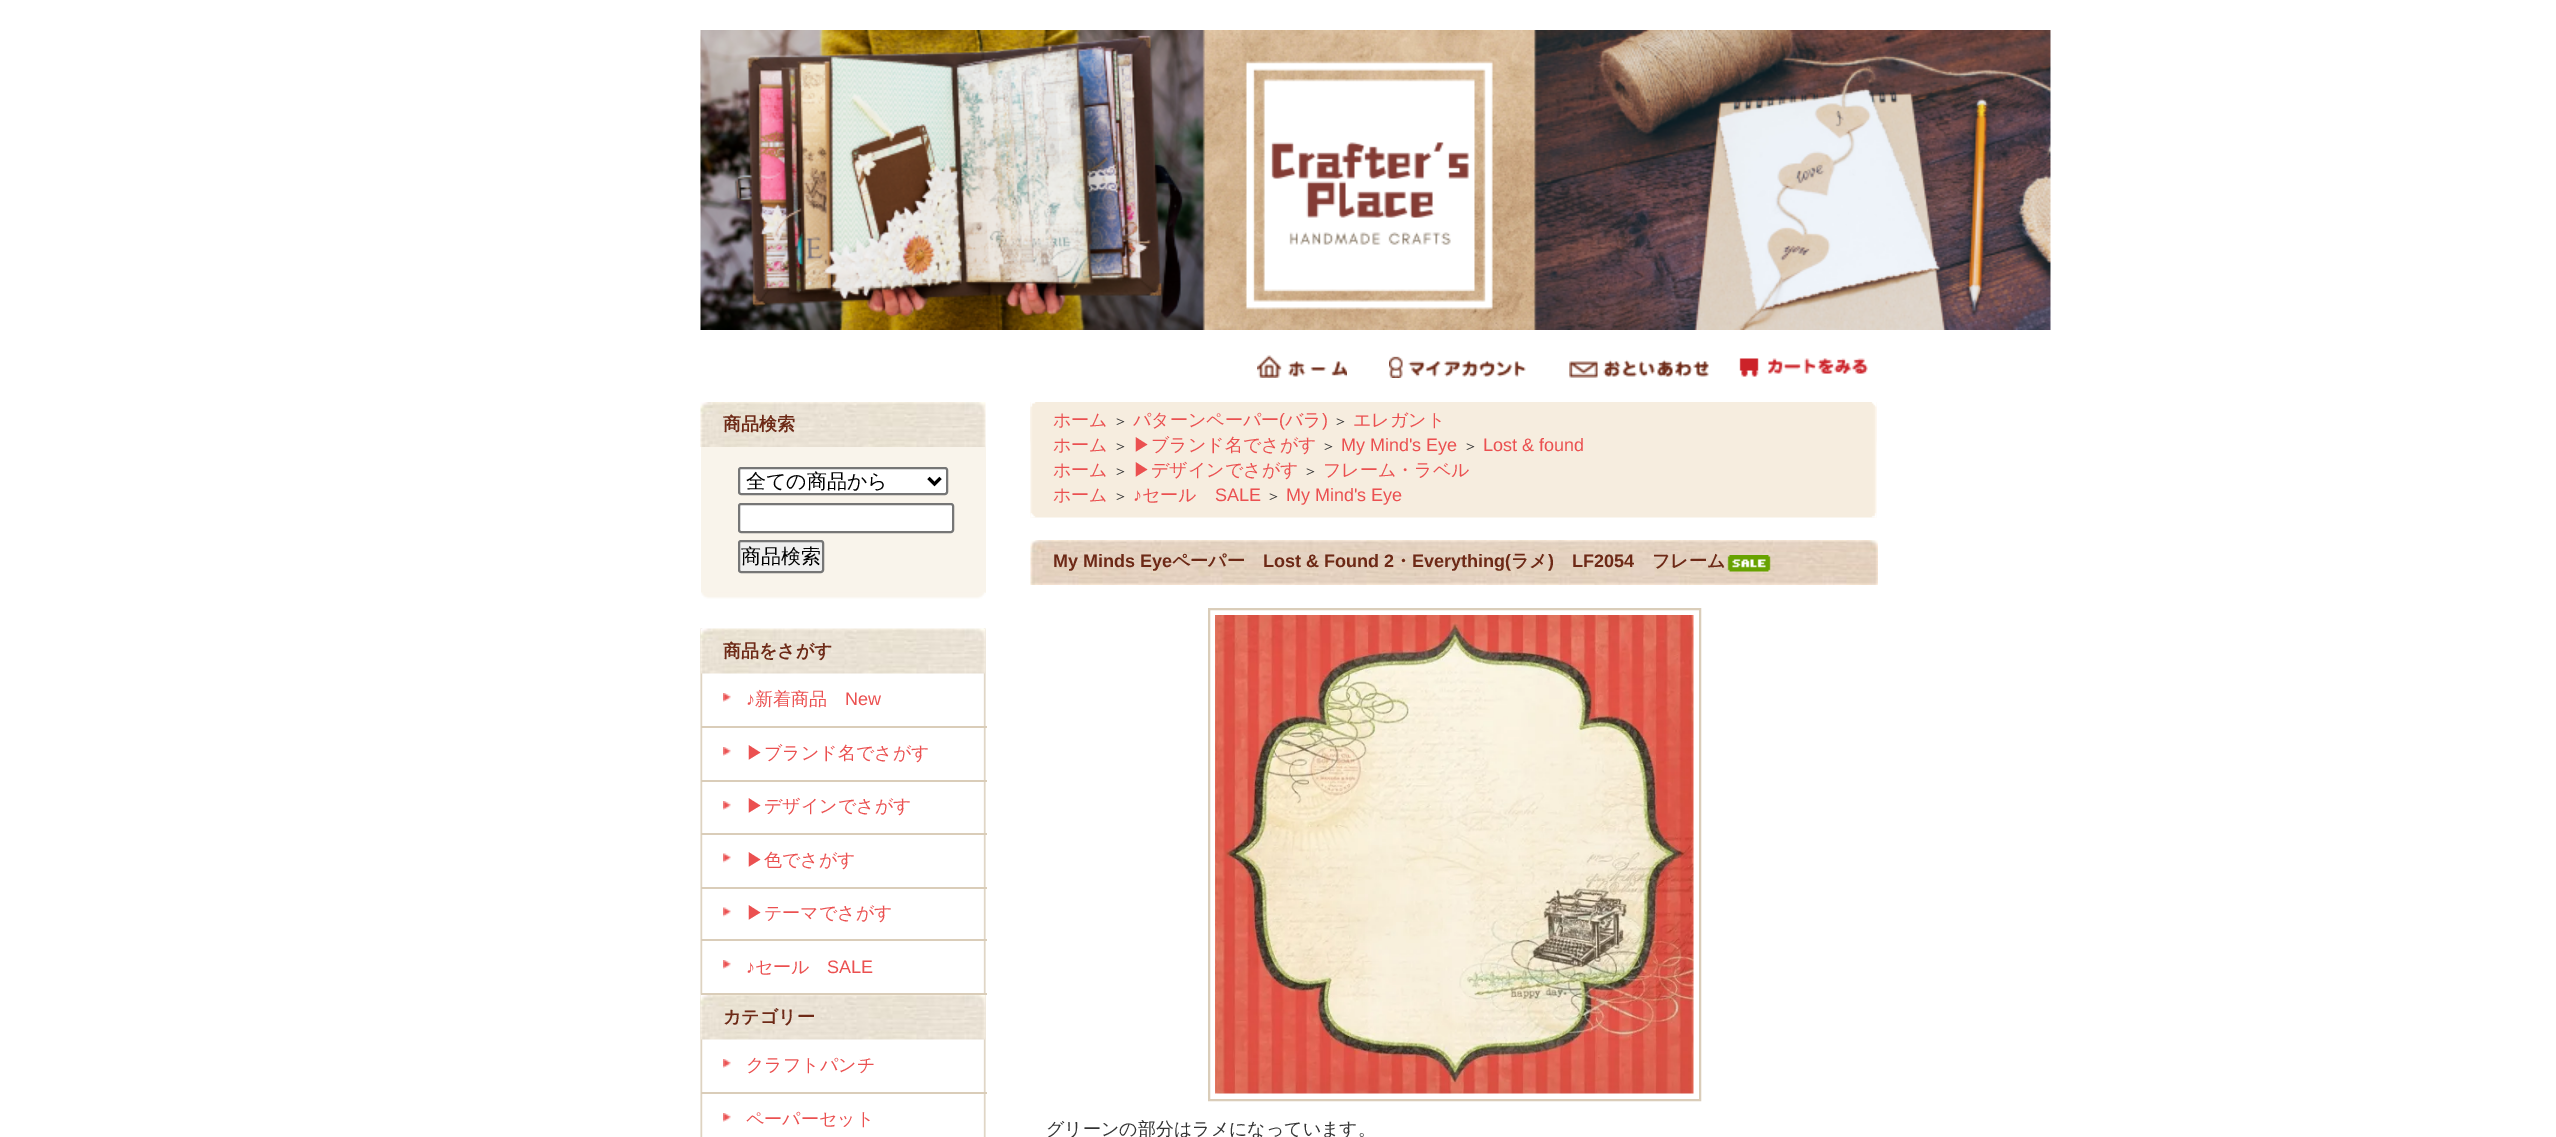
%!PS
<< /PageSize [2556 1137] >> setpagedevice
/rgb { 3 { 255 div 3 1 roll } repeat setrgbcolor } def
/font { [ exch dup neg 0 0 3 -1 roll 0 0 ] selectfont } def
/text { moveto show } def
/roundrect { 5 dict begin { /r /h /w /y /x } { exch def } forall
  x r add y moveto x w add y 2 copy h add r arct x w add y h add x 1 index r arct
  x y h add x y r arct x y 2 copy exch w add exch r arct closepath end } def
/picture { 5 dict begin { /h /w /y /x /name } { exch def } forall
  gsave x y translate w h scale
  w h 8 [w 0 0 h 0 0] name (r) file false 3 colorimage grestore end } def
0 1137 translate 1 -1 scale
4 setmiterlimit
255 255 255 rgb
0 0 2556 1137 rectfill
(img_01.rgb) 700 30 1 182 picture
(img_02.rgb) 700 30 1351 300 picture
(img_03.rgb) 1257 355 90 23 picture
(img_04.rgb) 1389 356 137 22 picture
(img_05.rgb) 1569 359 140 19 picture
(img_06.rgb) 1739 358 129 19 picture
(img_07.rgb) 700 402 286 45 picture
249 244 235 rgb
701 447 285 146 rectfill
255 255 255 rgb
739 468 208 26 2 roundrect gsave fill grestore
118 118 118 rgb
2 setlinewidth
stroke
0 0 0 rgb
3 setlinewidth
928.5 478 moveto 6 6 rlineto 6 -6 rlineto stroke
255 255 255 rgb
739 504 214 28 2 roundrect gsave fill grestore
118 118 118 rgb
2 setlinewidth
stroke
239 239 239 rgb
739 541 84 31 2 roundrect gsave fill grestore
118 118 118 rgb
stroke
(img_08.rgb) 701 592 285 7 picture
(img_09.rgb) 700 628 286 509 picture
(img_10.rgb) 700 628 286 46 picture
(img_11.rgb) 723 693 8 9 picture
218 205 185 rgb
701 726 286 2 rectfill
(img_11.rgb) 723 747 8 9 picture
701 780 286 2 rectfill
(img_11.rgb) 723 801 8 9 picture
701 833 286 2 rectfill
(img_12.rgb) 723 853 8 10 picture
701 887 286 2 rectfill
(img_12.rgb) 723 907 8 10 picture
701 939 286 2 rectfill
(img_11.rgb) 723 960 8 9 picture
(img_13.rgb) 700 994 286 46 picture
701 993 286 2 rectfill
(img_11.rgb) 723 1059 8 9 picture
701 1092 286 2 rectfill
(img_11.rgb) 723 1113 8 9 picture
(img_14.rgb) 1030 402 847 45 picture
(img_15.rgb) 1030 402 847 116 picture
(img_16.rgb) 1030 402 847 5 picture
(img_17.rgb) 1030 513 847 5 picture
(img_18.rgb) 1030 540 848 45 picture
(img_19.rgb) 1727 555 44 17 picture
1209 609 491 491 rectstroke
(img_20.rgb) 1215 615 479 479 picture
/WenQuanYiZenHei-Bold 18 font
109 41 22 rgb
(商品検索) 723 430 text
/WenQuanYiZenHei-Medium 20 font
0 0 0 rgb
(全ての商品から) 746 488 text
(商品検索) 741 563 text
/WenQuanYiZenHei-Bold 18 font
109 41 22 rgb
(商品をさがす) 723 657 text
/LiberationSans-Regular 18 font
235 80 80 rgb
(♪) 746 705 text
/WenQuanYiZenHei-Medium 18 font
(新着商品) 755 705 text
/LiberationSans-Regular 18 font
(New) 845 705 text
/WenQuanYiZenHei-Medium 18 font
(▶ブランド名でさがす) 746 759 text
(▶デザインでさがす) 746 812 text
(▶色でさがす) 746 866 text
(▶テーマでさがす) 746 919 text
/LiberationSans-Regular 18 font
(♪) 746 973 text
/WenQuanYiZenHei-Medium 18 font
(セール) 755 973 text
/LiberationSans-Regular 18 font
(SALE) 827 973 text
/WenQuanYiZenHei-Bold 18 font
109 41 22 rgb
(カテゴリー) 723 1023 text
/WenQuanYiZenHei-Medium 18 font
235 80 80 rgb
(クラフトパンチ) 746 1071 text
(ペーパーセット) 746 1125 text
(ホーム) 1053 426 text
/WenQuanYiZenHei-Medium 15 font
51 51 51 rgb
(＞) 1113 426 text
/WenQuanYiZenHei-Medium 18 font
235 80 80 rgb
(パターンペーパー) 1133 426 text
/LiberationSans-Regular 18 font
(\() 1279 426 text
/WenQuanYiZenHei-Medium 18 font
(バラ) 1285 426 text
/LiberationSans-Regular 18 font
(\)) 1322 426 text
/WenQuanYiZenHei-Medium 15 font
51 51 51 rgb
(＞) 1333 426 text
/WenQuanYiZenHei-Medium 18 font
235 80 80 rgb
(エレガント) 1353 426 text
(ホーム) 1053 451 text
/WenQuanYiZenHei-Medium 15 font
51 51 51 rgb
(＞) 1113 451 text
/WenQuanYiZenHei-Medium 18 font
235 80 80 rgb
(▶ブランド名でさがす) 1133 451 text
/WenQuanYiZenHei-Medium 15 font
51 51 51 rgb
(＞) 1321 451 text
/LiberationSans-Regular 18 font
235 80 80 rgb
(My Mind's Eye) 1341 451 text
/WenQuanYiZenHei-Medium 15 font
51 51 51 rgb
(＞) 1463 451 text
/LiberationSans-Regular 18 font
235 80 80 rgb
(Lost & found) 1483 451 text
/WenQuanYiZenHei-Medium 18 font
(ホーム) 1053 476 text
/WenQuanYiZenHei-Medium 15 font
51 51 51 rgb
(＞) 1113 476 text
/WenQuanYiZenHei-Medium 18 font
235 80 80 rgb
(▶デザインでさがす) 1133 476 text
/WenQuanYiZenHei-Medium 15 font
51 51 51 rgb
(＞) 1303 476 text
/WenQuanYiZenHei-Medium 18 font
235 80 80 rgb
(フレーム・ラベル) 1323 476 text
(ホーム) 1053 501 text
/WenQuanYiZenHei-Medium 15 font
51 51 51 rgb
(＞) 1113 501 text
/LiberationSans-Regular 18 font
235 80 80 rgb
(♪) 1133 501 text
/WenQuanYiZenHei-Medium 18 font
(セール) 1142 501 text
/LiberationSans-Regular 18 font
(SALE) 1215 501 text
/WenQuanYiZenHei-Medium 15 font
51 51 51 rgb
(＞) 1266 501 text
/LiberationSans-Regular 18 font
235 80 80 rgb
(My Mind's Eye) 1286 501 text
/LiberationSans-Bold 18 font
109 41 22 rgb
(My Minds Eye) 1053 567 text
/WenQuanYiZenHei-Bold 18 font
(ペーパー) 1172 567 text
/LiberationSans-Bold 18 font
(Lost & Found 2) 1263 567 text
/WenQuanYiZenHei-Bold 18 font
(・) 1394 567 text
/LiberationSans-Bold 18 font
(Everything\() 1412 567 text
/WenQuanYiZenHei-Bold 18 font
(ラメ) 1511 567 text
/LiberationSans-Bold 18 font
(\)) 1548 567 text
(LF2054) 1572 567 text
/WenQuanYiZenHei-Bold 18 font
(フレーム) 1652 567 text
/WenQuanYiZenHei-Medium 18 font
51 51 51 rgb
(グリーンの部分はラメになっています。) 1046 1135 text
showpage
